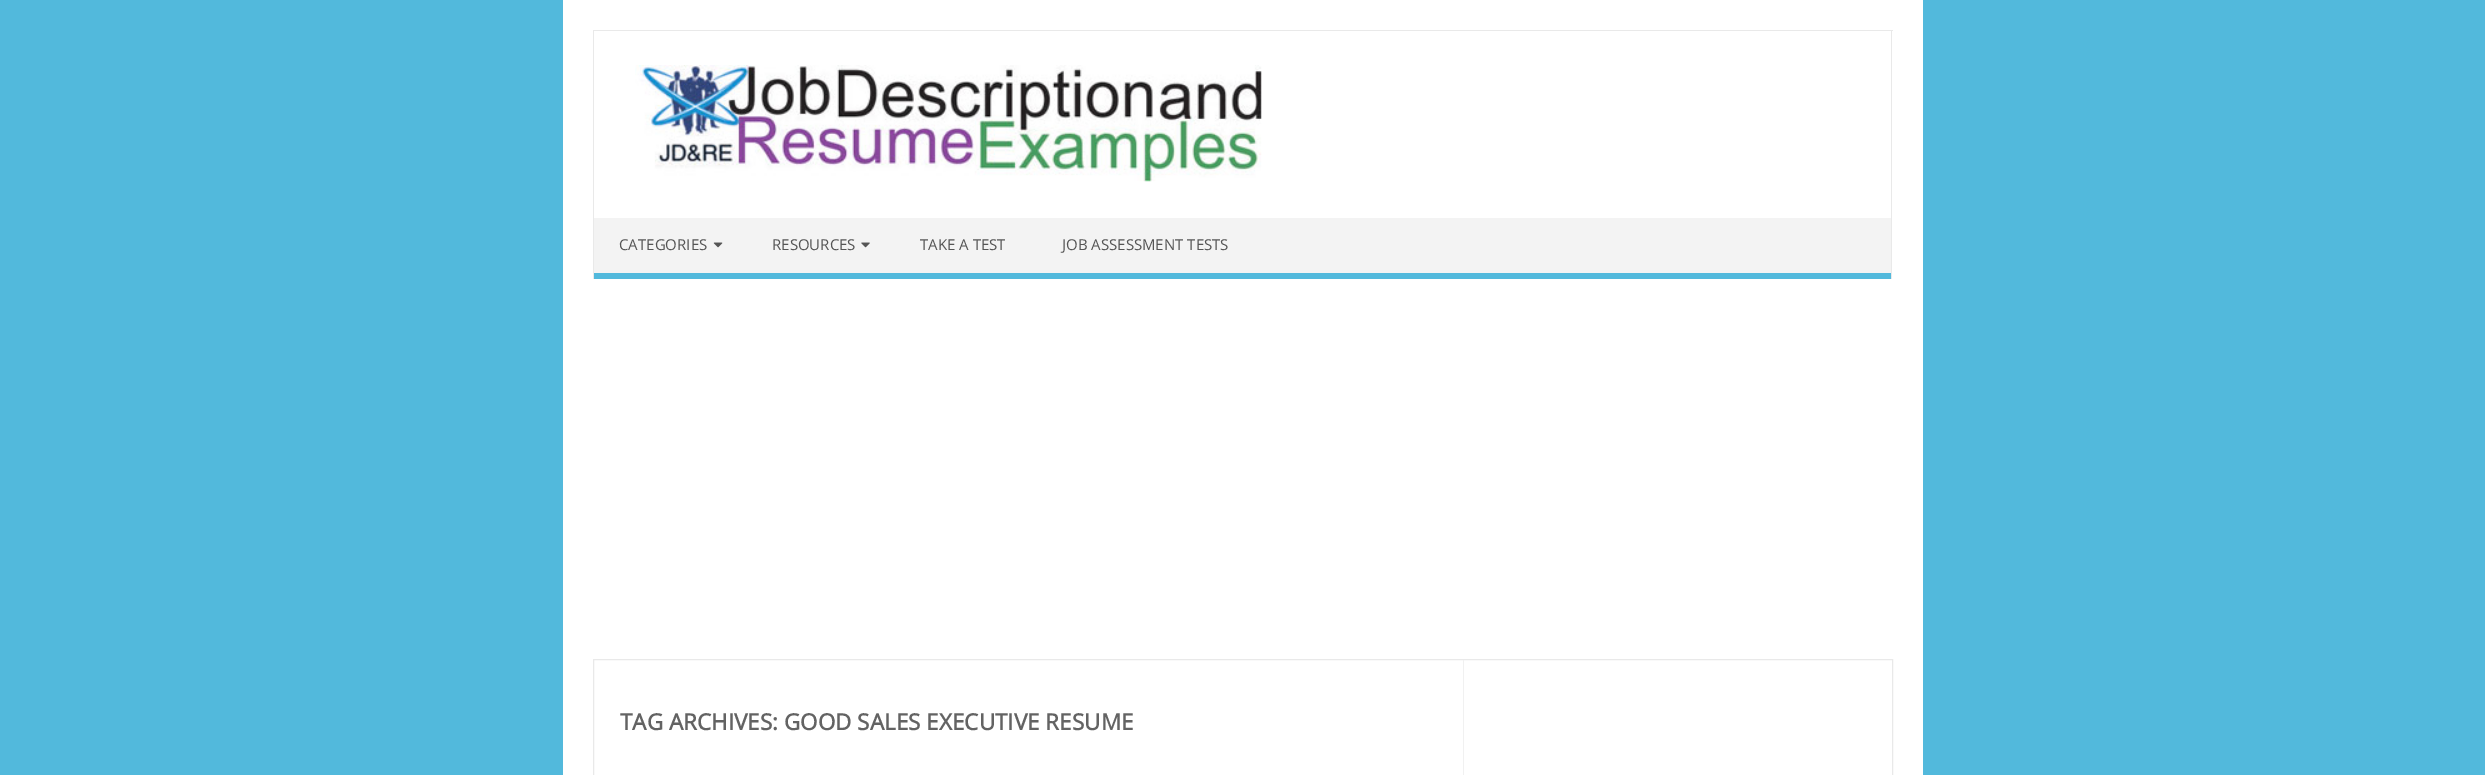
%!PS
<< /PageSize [2485 775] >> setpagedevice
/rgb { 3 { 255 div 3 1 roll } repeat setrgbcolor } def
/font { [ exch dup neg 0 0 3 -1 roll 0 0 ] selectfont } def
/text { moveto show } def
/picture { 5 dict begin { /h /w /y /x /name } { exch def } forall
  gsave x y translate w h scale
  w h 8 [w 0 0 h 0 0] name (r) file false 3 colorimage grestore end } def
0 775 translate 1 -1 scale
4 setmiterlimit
82 185 220 rgb
0 0 2485 775 rectfill
255 255 255 rgb
563 0 1360 775 rectfill
233 233 233 rgb
593 30 1300 1 rectfill
1891 30 1 249 rectfill
593 30 1 249 rectfill
(img_01.rgb) 635 65 627 117 picture
243 243 243 rgb
594 218 1297 55 rectfill
82 185 220 rgb
594 273 1297 6 rectfill
(img_02.rgb) 713 242 10 6 picture
(img_03.rgb) 861 242 9 6 picture
233 233 233 rgb
593.5 659.5 1299 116 rectstroke
241 241 241 rgb
1463 660 1 115 rectfill
/OpenSans-Regular 15 font
85 85 85 rgb
(CATEGORIES) 619 250 text
(RESOURCES) 772 250 text
(TAKE A TEST) 920 250 text
(JOB ASSESSMENT TESTS) 1062 250 text
/OpenSans-Bold 22.5 font
99 99 99 rgb
(TAG ARCHIVES: GOOD SALES EXECUTIVE RESUME) 620 730 text
showpage
